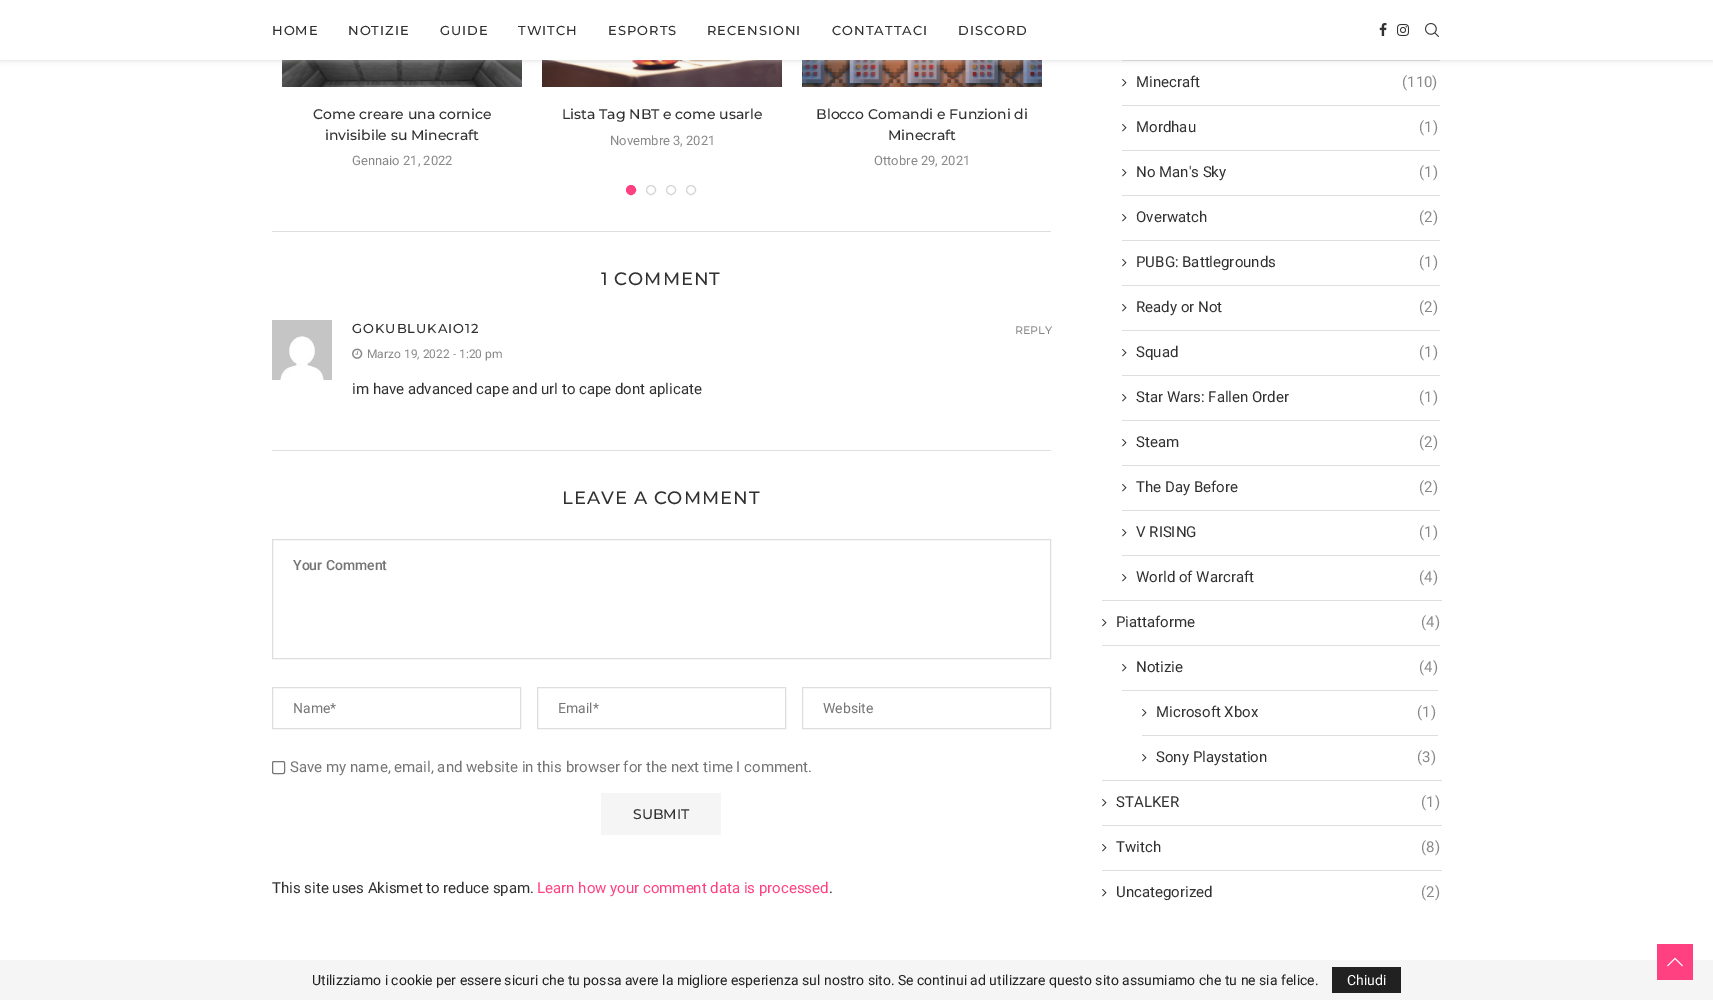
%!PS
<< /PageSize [1713 1000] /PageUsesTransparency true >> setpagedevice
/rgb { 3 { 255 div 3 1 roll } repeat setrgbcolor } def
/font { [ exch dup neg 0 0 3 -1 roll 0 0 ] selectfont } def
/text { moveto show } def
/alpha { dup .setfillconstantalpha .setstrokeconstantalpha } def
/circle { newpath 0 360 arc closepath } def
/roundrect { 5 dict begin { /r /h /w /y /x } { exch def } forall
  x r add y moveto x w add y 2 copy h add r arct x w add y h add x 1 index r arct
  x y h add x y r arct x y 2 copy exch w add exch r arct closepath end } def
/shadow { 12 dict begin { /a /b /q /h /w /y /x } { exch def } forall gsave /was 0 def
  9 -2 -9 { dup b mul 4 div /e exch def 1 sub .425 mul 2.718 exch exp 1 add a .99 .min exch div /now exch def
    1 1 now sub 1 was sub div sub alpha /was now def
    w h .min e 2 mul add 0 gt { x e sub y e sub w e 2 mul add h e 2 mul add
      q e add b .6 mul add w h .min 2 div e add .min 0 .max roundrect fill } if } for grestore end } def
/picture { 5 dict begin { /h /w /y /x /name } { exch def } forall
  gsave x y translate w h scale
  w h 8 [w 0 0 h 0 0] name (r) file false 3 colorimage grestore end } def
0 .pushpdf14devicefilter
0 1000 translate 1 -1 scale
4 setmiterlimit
255 255 255 rgb
0 0 1713 1000 rectfill
(img_04.rgb) 282 60 240 27 picture
(img_05.rgb) 542 60 240 27 picture
(img_06.rgb) 802 60 240 27 picture
222 222 222 rgb
1122 60 318 1 rectfill
190 190 190 rgb
0 1 1713 60 0 2.5 0.46 shadow
255 255 255 rgb
0 0 1713 60 rectfill
(img_01.rgb) 1379 23 8 13 picture
(img_02.rgb) 1397 24 12 12 picture
(img_03.rgb) 1425 23 14 14 picture
255 64 129 rgb
631 190 4.5 circle gsave fill grestore
stroke
212 212 212 rgb
651 190 4.5 circle stroke
671 190 4.5 circle stroke
691 190 4.5 circle stroke
222 222 222 rgb
272 231 779 1 rectfill
(img_07.rgb) 272 320 60 60 picture
(img_08.rgb) 352 348 11 11 picture
272 450 779 1 rectfill
272.5 539.5 778 119 rectstroke
272.5 687.5 248 41 rectstroke
537.5 687.5 248 41 rectstroke
802.5 687.5 248 41 rectstroke
118 118 118 rgb
272.5 761.5 12 12 1.5 roundrect stroke
245 245 245 rgb
601 793 120 42 rectfill
222 222 222 rgb
1102 600 340 1 rectfill
1122 105 318 1 rectfill
(img_09.rgb) 1122 79 5 8 picture
1122 150 318 1 rectfill
(img_09.rgb) 1122 124 5 8 picture
1122 195 318 1 rectfill
(img_09.rgb) 1122 169 5 8 picture
1122 240 318 1 rectfill
(img_09.rgb) 1122 214 5 8 picture
1122 285 318 1 rectfill
(img_09.rgb) 1122 259 5 8 picture
1122 330 318 1 rectfill
(img_09.rgb) 1122 304 5 8 picture
1122 375 318 1 rectfill
(img_09.rgb) 1122 349 5 8 picture
1122 420 318 1 rectfill
(img_09.rgb) 1122 394 5 8 picture
1122 465 318 1 rectfill
(img_09.rgb) 1122 439 5 8 picture
1122 510 318 1 rectfill
(img_09.rgb) 1122 484 5 8 picture
1122 555 318 1 rectfill
(img_09.rgb) 1122 529 5 8 picture
(img_09.rgb) 1122 574 5 8 picture
1102 780 340 1 rectfill
(img_09.rgb) 1102 619 5 8 picture
1102 645 338 1 rectfill
(img_09.rgb) 1122 664 5 8 picture
1122 690 316 1 rectfill
1142 735 296 1 rectfill
(img_09.rgb) 1142 709 5 8 picture
(img_09.rgb) 1142 754 5 8 picture
1102 825 340 1 rectfill
(img_09.rgb) 1102 799 5 8 picture
1102 870 340 1 rectfill
(img_09.rgb) 1102 844 5 8 picture
(img_09.rgb) 1102 889 5 8 picture
245 245 245 rgb
0 960 1713 40 rectfill
255 64 129 rgb
1657 944 36 36 rectfill
(img_10.rgb) 1667 957 16 10 picture
33 33 33 rgb
1332 967 69 26 rectfill
/Montserrat-Medium 13 font
49 49 49 rgb
272 35 moveto 1 0 (HOME) ashow
348 35 moveto 1 0 (NOTIZIE) ashow
440 35 moveto 1 0 (GUIDE) ashow
518 35 moveto 1 0 (TWITCH) ashow
608 35 moveto 1 0 (ESPORTS) ashow
707 35 moveto 1 0 (RECENSIONI) ashow
832 35 moveto 1 0 (CONTATTACI) ashow
958 35 moveto 1 0 (DISCORD) ashow
/Montserrat-Medium 14 font
(Come creare una cornice) 313 119 text
(invisibile su Minecraft) 325 140 text
/Roboto-Regular 13 font
136 136 136 rgb
(Gennaio 21, 2022) 352 165 text
/Montserrat-Medium 14 font
49 49 49 rgb
(Lista Tag NBT e come usarle) 562 119 text
/Roboto-Regular 13 font
136 136 136 rgb
(Novembre 3, 2021) 610 145 text
/Montserrat-Medium 14 font
49 49 49 rgb
(Blocco Comandi e Funzioni di) 816 119 text
(Minecraft) 888 140 text
/Roboto-Regular 13 font
136 136 136 rgb
(Ottobre 29, 2021) 874 165 text
/Montserrat-Medium 18 font
49 49 49 rgb
601 285 moveto 1 0 (1 COMMENT) ashow
/Montserrat-Medium 13 font
352 333 moveto 1 0 (GOKUBLUKAIO12) ashow
/Montserrat-Medium 11 font
136 136 136 rgb
(REPLY) 1015 334 text
/Roboto-Regular 12 font
(Marzo 19, 2022 - 1:20 pm) 367 358 text
/Roboto-Regular 15 font
49 49 49 rgb
(im have advanced cape and url to cape dont aplicate) 352 394 text
/Montserrat-Medium 18 font
562 504 moveto 1 0 (LEAVE A COMMENT) ashow
/Roboto-Medium 14 font
117 117 117 rgb
(Your Comment) 293 570 text
/Roboto-Regular 14 font
(Name*) 293 713 text
(Email*) 558 713 text
(Website) 823 713 text
/Roboto-Regular 15 font
(Save my name, email, and website in this browser for the next time I comment.) 290 772 text
/Montserrat-Medium 14 font
49 49 49 rgb
(SUBMIT) 633 819 text
/Roboto-Regular 15 font
(This site uses Akismet to reduce spam.) 272 893 text
255 64 129 rgb
(Learn how your comment data is processed) 537 893 text
49 49 49 rgb
(.) 829 893 text
(Minecraft) 1136 87 text
136 136 136 rgb
(\(110\)) 1402 87 text
49 49 49 rgb
(Mordhau) 1136 132 text
136 136 136 rgb
(\(1\)) 1419 132 text
49 49 49 rgb
(No Man's Sky) 1136 177 text
136 136 136 rgb
(\(1\)) 1419 177 text
49 49 49 rgb
(Overwatch) 1136 222 text
136 136 136 rgb
(\(2\)) 1419 222 text
49 49 49 rgb
(PUBG: Battlegrounds) 1136 267 text
136 136 136 rgb
(\(1\)) 1419 267 text
49 49 49 rgb
(Ready or Not) 1136 312 text
136 136 136 rgb
(\(2\)) 1419 312 text
49 49 49 rgb
(Squad) 1136 357 text
136 136 136 rgb
(\(1\)) 1419 357 text
49 49 49 rgb
(Star Wars: Fallen Order) 1136 402 text
136 136 136 rgb
(\(1\)) 1419 402 text
49 49 49 rgb
(Steam) 1136 447 text
136 136 136 rgb
(\(2\)) 1419 447 text
49 49 49 rgb
(The Day Before) 1136 492 text
136 136 136 rgb
(\(2\)) 1419 492 text
49 49 49 rgb
(V RISING) 1136 537 text
136 136 136 rgb
(\(1\)) 1419 537 text
49 49 49 rgb
(World of Warcraft) 1136 582 text
136 136 136 rgb
(\(4\)) 1419 582 text
49 49 49 rgb
(Piattaforme) 1116 627 text
136 136 136 rgb
(\(4\)) 1421 627 text
49 49 49 rgb
(Notizie) 1136 672 text
136 136 136 rgb
(\(4\)) 1419 672 text
49 49 49 rgb
(Microsoft Xbox) 1156 717 text
136 136 136 rgb
(\(1\)) 1417 717 text
49 49 49 rgb
(Sony Playstation) 1156 762 text
136 136 136 rgb
(\(3\)) 1417 762 text
49 49 49 rgb
(STALKER) 1116 807 text
136 136 136 rgb
(\(1\)) 1421 807 text
49 49 49 rgb
(Twitch) 1116 852 text
136 136 136 rgb
(\(8\)) 1421 852 text
49 49 49 rgb
(Uncategorized) 1116 897 text
136 136 136 rgb
(\(2\)) 1421 897 text
/Roboto-Regular 14 font
33 33 33 rgb
(Utilizziamo i cookie per essere sicuri che tu possa avere la migliore esperienza sul nostro sito. Se continui ad utilizzare questo sito assumiamo che tu ne sia felice.) 312 985 text
255 255 255 rgb
(Chiudi) 1347 985 text
.poppdf14devicefilter showpage
